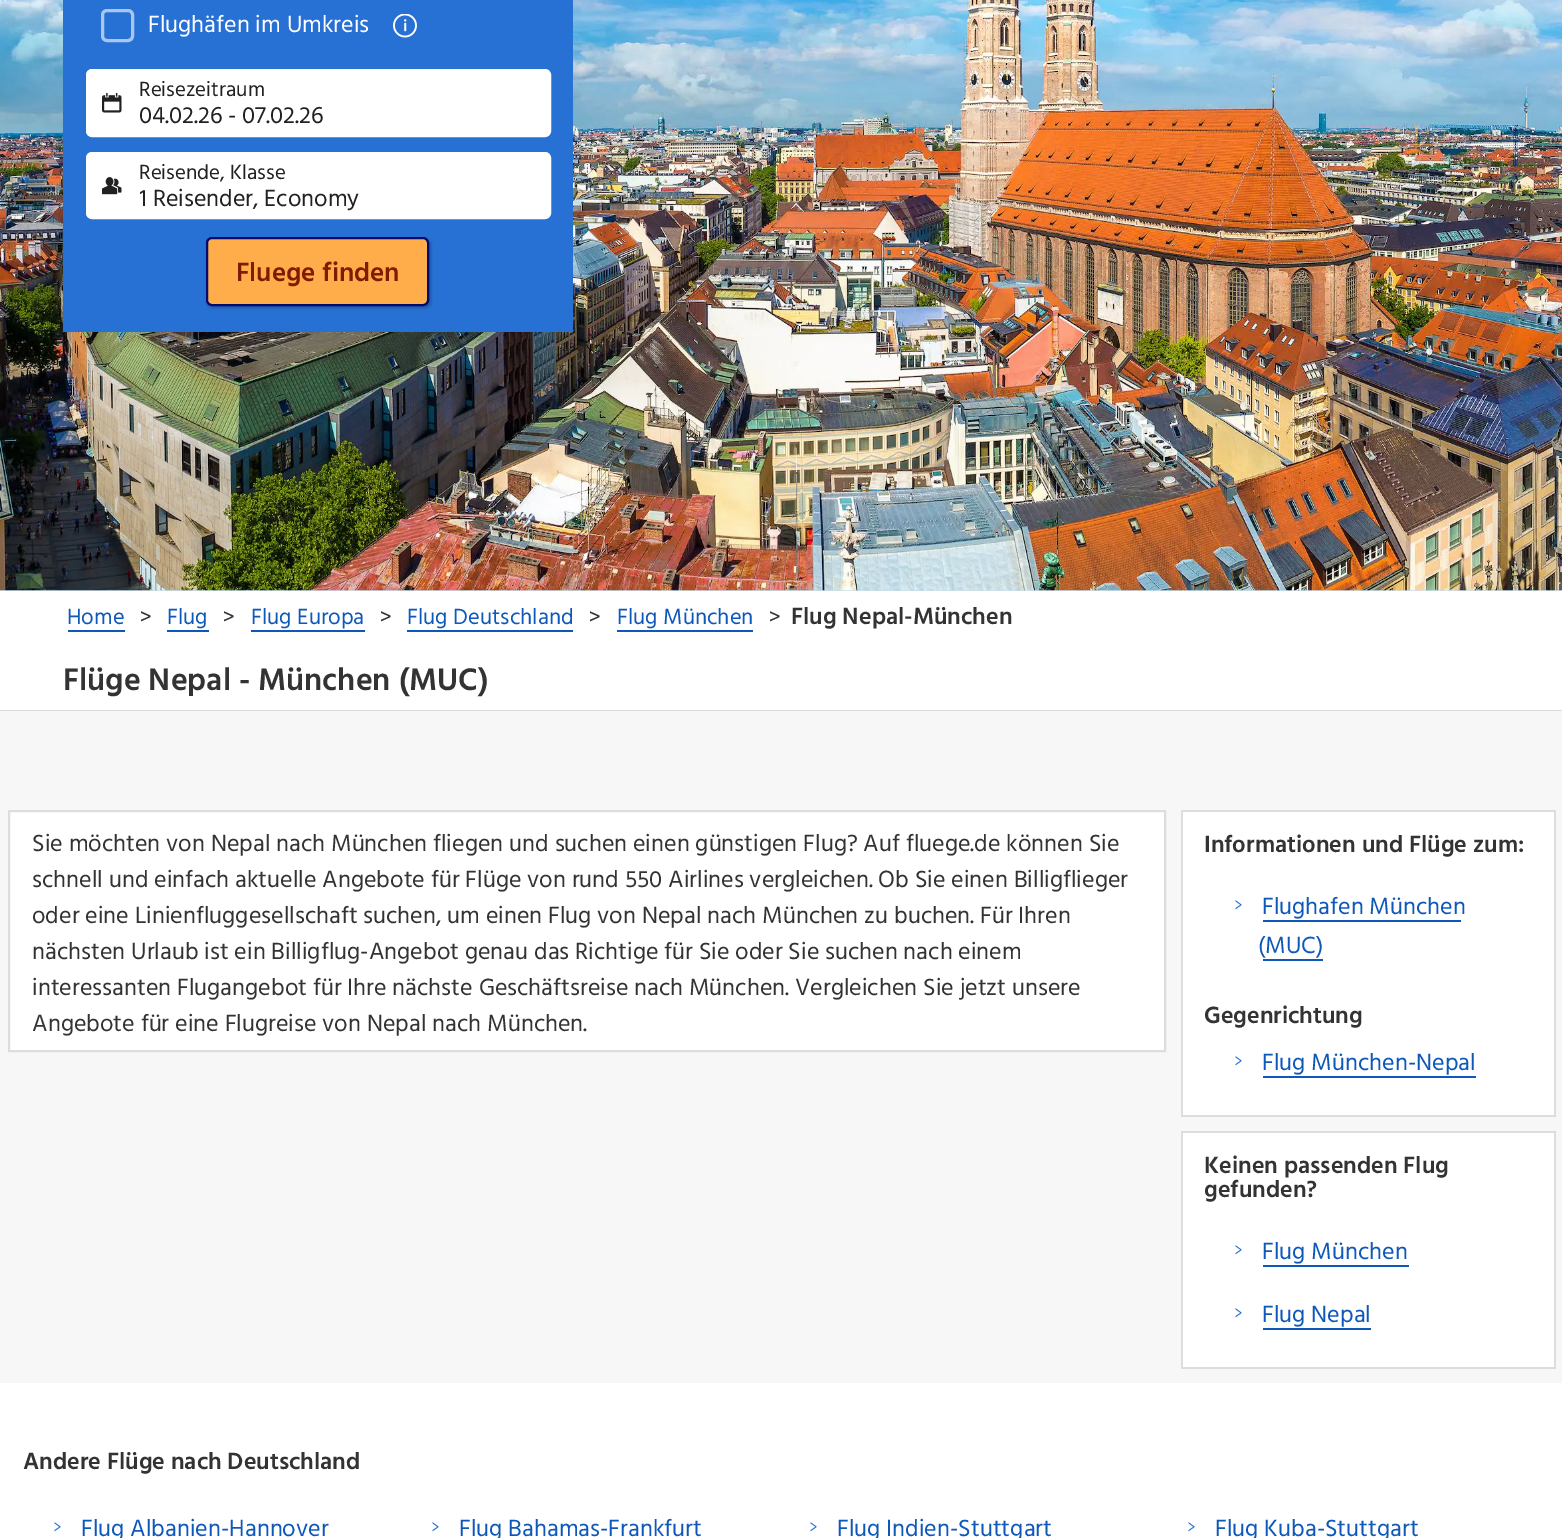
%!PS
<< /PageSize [1562 1538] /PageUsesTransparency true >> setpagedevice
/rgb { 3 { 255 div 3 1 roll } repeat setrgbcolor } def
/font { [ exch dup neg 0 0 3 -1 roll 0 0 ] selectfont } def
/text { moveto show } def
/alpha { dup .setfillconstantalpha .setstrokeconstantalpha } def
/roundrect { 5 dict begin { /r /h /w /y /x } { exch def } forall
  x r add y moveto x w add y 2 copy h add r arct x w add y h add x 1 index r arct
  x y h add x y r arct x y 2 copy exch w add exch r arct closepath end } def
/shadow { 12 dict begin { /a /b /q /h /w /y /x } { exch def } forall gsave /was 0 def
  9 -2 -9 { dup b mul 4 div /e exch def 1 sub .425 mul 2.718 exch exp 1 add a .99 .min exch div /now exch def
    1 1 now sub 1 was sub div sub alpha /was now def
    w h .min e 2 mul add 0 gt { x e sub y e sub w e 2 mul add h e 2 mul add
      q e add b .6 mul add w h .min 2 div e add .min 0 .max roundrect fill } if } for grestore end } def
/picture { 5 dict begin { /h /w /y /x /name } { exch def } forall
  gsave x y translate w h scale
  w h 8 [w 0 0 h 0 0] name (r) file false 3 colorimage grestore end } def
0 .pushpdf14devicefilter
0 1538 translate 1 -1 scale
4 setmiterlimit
255 255 255 rgb
0 0 1562 1538 rectfill
201 223 236 rgb
0 590 1562 1 rectfill
(img_01.rgb) 0 0 1562 591 picture
39 113 212 rgb
63 0 510 332 rectfill
169 198 238 rgb
3 setlinewidth
102.5 10.5 30 30 4.5 roundrect stroke
(img_02.rgb) 393 14 24 24 picture
255 255 255 rgb
87 70 463 66 5 roundrect gsave fill grestore
2 setlinewidth
stroke
(img_03.rgb) 102 93 20 20 picture
87 153 463 65 5 roundrect gsave fill grestore
stroke
(img_04.rgb) 102 177 20 18 picture
0 0 0 rgb
207 239 224 69 6 1.5 0.24 shadow
255 173 74 rgb
207 238 221 67 5 roundrect gsave fill grestore
0 11 110 rgb
stroke
218 218 218 rgb
0 710 1562 1 rectfill
14 88 186 rgb
68 630 57 2 rectfill
167 630 42 2 rectfill
251 630 114 2 rectfill
407 630 166 2 rectfill
617 630 136 2 rectfill
247 247 247 rgb
0 711 1562 672 rectfill
255 255 255 rgb
9 811 moveto 1156 0 rlineto 0 240 rlineto -1156 0 rlineto closepath gsave fill grestore
221 221 221 rgb
stroke
255 255 255 rgb
1183 812 371 303 rectfill
221 221 221 rgb
1181 810 375 2 rectfill
1554 810 2 306 rectfill
1181 810 2 219 rectfill
14 88 186 rgb
1263 920 198 2 rectfill
1263 959 60 2 rectfill
221 221 221 rgb
1181 1115 375 2 rectfill
1181 1029 2 87 rectfill
14 88 186 rgb
1263 1076 213 2 rectfill
255 255 255 rgb
1183 1133 371 234 rectfill
221 221 221 rgb
1181 1131 375 2 rectfill
1554 1131 2 237 rectfill
1181 1131 2 87 rectfill
1181 1367 375 2 rectfill
1181 1218 2 150 rectfill
14 88 186 rgb
1263 1265 146 2 rectfill
1263 1328 108 2 rectfill
/Hind-Regular 24 font
255 255 255 rgb
(Flughäfen im Umkreis) 148 32 text
/Hind-Regular 21 font
33 33 33 rgb
(Reisezeitraum) 139 96 text
/Hind-Regular 24 font
(04.02.26 - 07.02.26) 139 123 text
/Hind-Regular 21 font
(Reisende, Klasse) 139 179 text
gsave
140 183 391 35 rectclip
/Hind-Regular 24 font
(1 Reisender, Economy) 139 206 text
grestore
/Hind-SemiBold 27 font
128 26 0 rgb
(Fluege finden) 236 281 text
/Hind-Regular 22.5 font
14 88 186 rgb
(Home) 67 624 text
51 51 51 rgb
(>) 140 624 text
14 88 186 rgb
(Flug) 167 624 text
51 51 51 rgb
(>) 223 624 text
14 88 186 rgb
(Flug Europa) 251 624 text
51 51 51 rgb
(>) 380 624 text
14 88 186 rgb
(Flug Deutschland) 407 624 text
51 51 51 rgb
(>) 589 624 text
14 88 186 rgb
(Flug München) 617 624 text
51 51 51 rgb
(>) 769 624 text
/Hind-SemiBold 24 font
(Flug Nepal-München) 791 624 text
/Hind-SemiBold 32 font
(Flüge Nepal - München \(MUC\)) 63 690 text
/Hind-Regular 24 font
(Sie möchten von Nepal nach München fliegen und suchen einen günstigen Flug? Auf fluege.de können Sie) 32 851 text
(schnell und einfach aktuelle Angebote für Flüge von rund 550 Airlines vergleichen. Ob Sie einen Billigflieger) 32 887 text
(oder eine Linienfluggesellschaft suchen, um einen Flug von Nepal nach München zu buchen. Für Ihren) 32 923 text
(nächsten Urlaub ist ein Billigflug-Angebot genau das Richtige für Sie oder Sie suchen nach einem) 32 959 text
(interessanten Flugangebot für Ihre nächste Geschäftsreise nach München. Vergleichen Sie jetzt unsere) 32 995 text
(Angebote für eine Flugreise von Nepal nach München.) 32 1031 text
/Hind-SemiBold 24 font
(Informationen und Flüge zum:) 1204 852 text
/Raleway-Regular 24 font
39 113 212 rgb
(›) 1234 911 text
/Hind-Regular 24 font
14 88 186 rgb
(Flughafen München) 1262 914 text
(\(MUC\)) 1258 953 text
/Hind-SemiBold 24 font
51 51 51 rgb
(Gegenrichtung) 1204 1023 text
/Raleway-Regular 24 font
39 113 212 rgb
(›) 1234 1067 text
/Hind-Regular 24 font
14 88 186 rgb
(Flug München-Nepal) 1262 1070 text
/Hind-SemiBold 24 font
51 51 51 rgb
(Keinen passenden Flug) 1204 1173 text
(gefunden?) 1204 1197 text
/Raleway-Regular 24 font
39 113 212 rgb
(›) 1234 1256 text
/Hind-Regular 24 font
14 88 186 rgb
(Flug München) 1262 1259 text
/Raleway-Regular 24 font
39 113 212 rgb
(›) 1234 1319 text
/Hind-Regular 24 font
14 88 186 rgb
(Flug Nepal) 1262 1322 text
/Hind-SemiBold 24 font
51 51 51 rgb
(Andere Flüge nach Deutschland) 23 1469 text
/Raleway-Regular 24 font
39 113 212 rgb
(›) 53 1533 text
/Hind-Regular 24 font
14 88 186 rgb
(Flug Albanien-Hannover) 81 1536 text
/Raleway-Regular 24 font
39 113 212 rgb
(›) 431 1533 text
/Hind-Regular 24 font
14 88 186 rgb
(Flug Bahamas-Frankfurt) 459 1536 text
/Raleway-Regular 24 font
39 113 212 rgb
(›) 809 1533 text
/Hind-Regular 24 font
14 88 186 rgb
(Flug Indien-Stuttgart) 837 1536 text
/Raleway-Regular 24 font
39 113 212 rgb
(›) 1187 1533 text
/Hind-Regular 24 font
14 88 186 rgb
(Flug Kuba-Stuttgart) 1215 1536 text
.poppdf14devicefilter showpage
